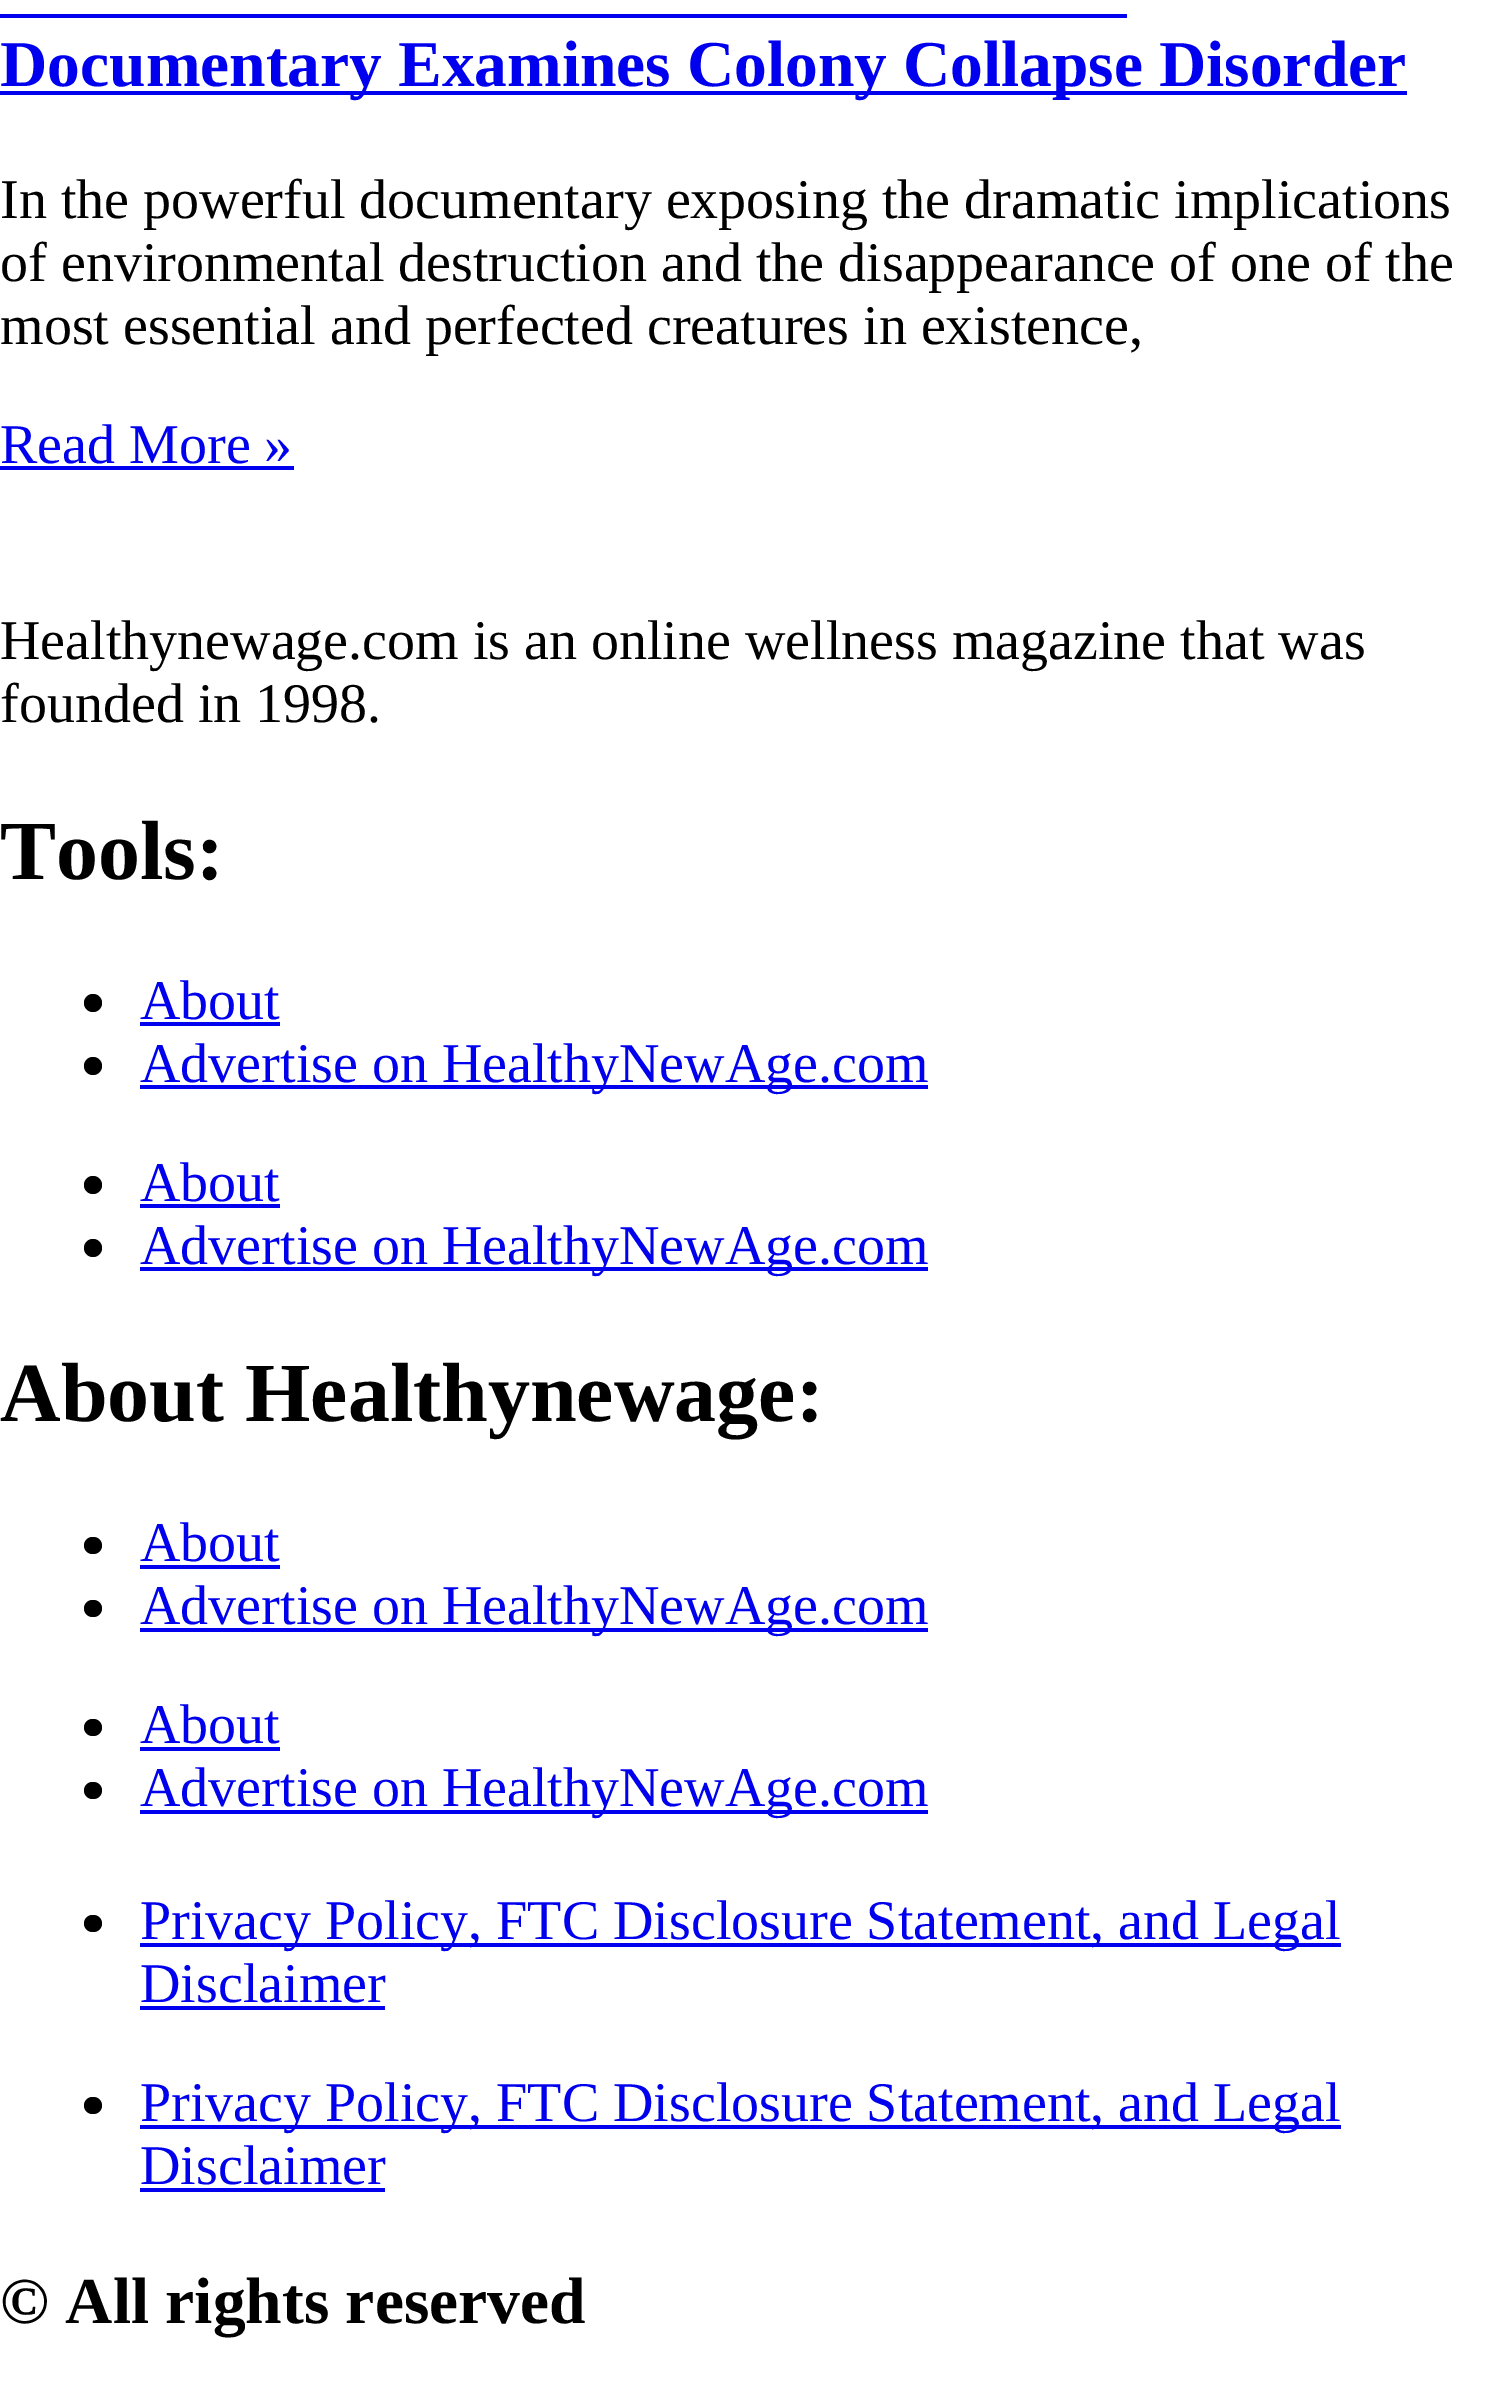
%!PS
<< /PageSize [1497 2407] >> setpagedevice
/rgb { 3 { 255 div 3 1 roll } repeat setrgbcolor } def
/font { [ exch dup neg 0 0 3 -1 roll 0 0 ] selectfont } def
/text { moveto show } def
/circle { newpath 0 360 arc closepath } def
/roundrect { 5 dict begin { /r /h /w /y /x } { exch def } forall
  x r add y moveto x w add y 2 copy h add r arct x w add y h add x 1 index r arct
  x y h add x y r arct x y 2 copy exch w add exch r arct closepath end } def
0 2407 translate 1 -1 scale
4 setmiterlimit
255 255 255 rgb
0 0 1497 2407 rectfill
0 0 238 rgb
0 14 1127 4 rectfill
0 91 1407 4 rectfill
0 466 294 4 rectfill
0 0 0 rgb
93 1003 9 circle fill
0 0 238 rgb
140 1022 140 4 rectfill
0 0 0 rgb
93 1066 9 circle fill
0 0 238 rgb
140 1085 788 4 rectfill
0 0 0 rgb
93 1185 9 circle fill
0 0 238 rgb
140 1204 140 4 rectfill
0 0 0 rgb
93 1248 9 circle fill
0 0 238 rgb
140 1267 788 4 rectfill
0 0 0 rgb
84 1537 18 17 8.5 roundrect fill
0 0 238 rgb
140 1565 140 4 rectfill
0 0 0 rgb
84 1600 18 17 8.5 roundrect fill
0 0 238 rgb
140 1628 788 4 rectfill
0 0 0 rgb
84 1719 18 17 8.5 roundrect fill
0 0 238 rgb
140 1747 140 4 rectfill
0 0 0 rgb
84 1782 18 17 8.5 roundrect fill
0 0 238 rgb
140 1810 788 4 rectfill
0 0 0 rgb
84 1915 18 17 8.5 roundrect fill
0 0 238 rgb
140 1943 1201 4 rectfill
140 2006 245 4 rectfill
0 0 0 rgb
84 2097 18 17 8.5 roundrect fill
0 0 238 rgb
140 2125 1201 4 rectfill
140 2188 245 4 rectfill
/LiberationSerif-Bold 65.5 font
0 86 moveto -0.5 0 32 (Documentary Examines Colony Collapse Disorder) widthshow
/LiberationSerif-Regular 56 font
0 0 0 rgb
(In the powerful documentary exposing the dramatic implications) 0 218 text
(of environmental destruction and the disappearance of one of the) 0 281 text
(most essential and perfected creatures in existence,) 0 344 text
0 0 238 rgb
(Read More ») 0 463 text
0 0 0 rgb
(Healthynewage.com is an online wellness magazine that was) 0 659 text
(founded in 1998.) 0 722 text
/LiberationSerif-Bold 84 font
(Tools:) 0 879 text
/LiberationSerif-Regular 56 font
0 0 238 rgb
(About) 140 1019 text
(Advertise on HealthyNewAge.com) 140 1082 text
(About) 140 1201 text
(Advertise on HealthyNewAge.com) 140 1264 text
/LiberationSerif-Bold 84 font
0 0 0 rgb
(About Healthynewage:) 0 1421 text
/LiberationSerif-Regular 56 font
0 0 238 rgb
(About) 140 1561 text
(Advertise on HealthyNewAge.com) 140 1624 text
(About) 140 1743 text
(Advertise on HealthyNewAge.com) 140 1806 text
(Privacy Policy, FTC Disclosure Statement, and Legal) 140 1939 text
(Disclaimer) 140 2002 text
(Privacy Policy, FTC Disclosure Statement, and Legal) 140 2121 text
(Disclaimer) 140 2184 text
/LiberationSerif-Bold 65.5 font
0 0 0 rgb
(© All rights reserved) 0 2323 text
showpage
